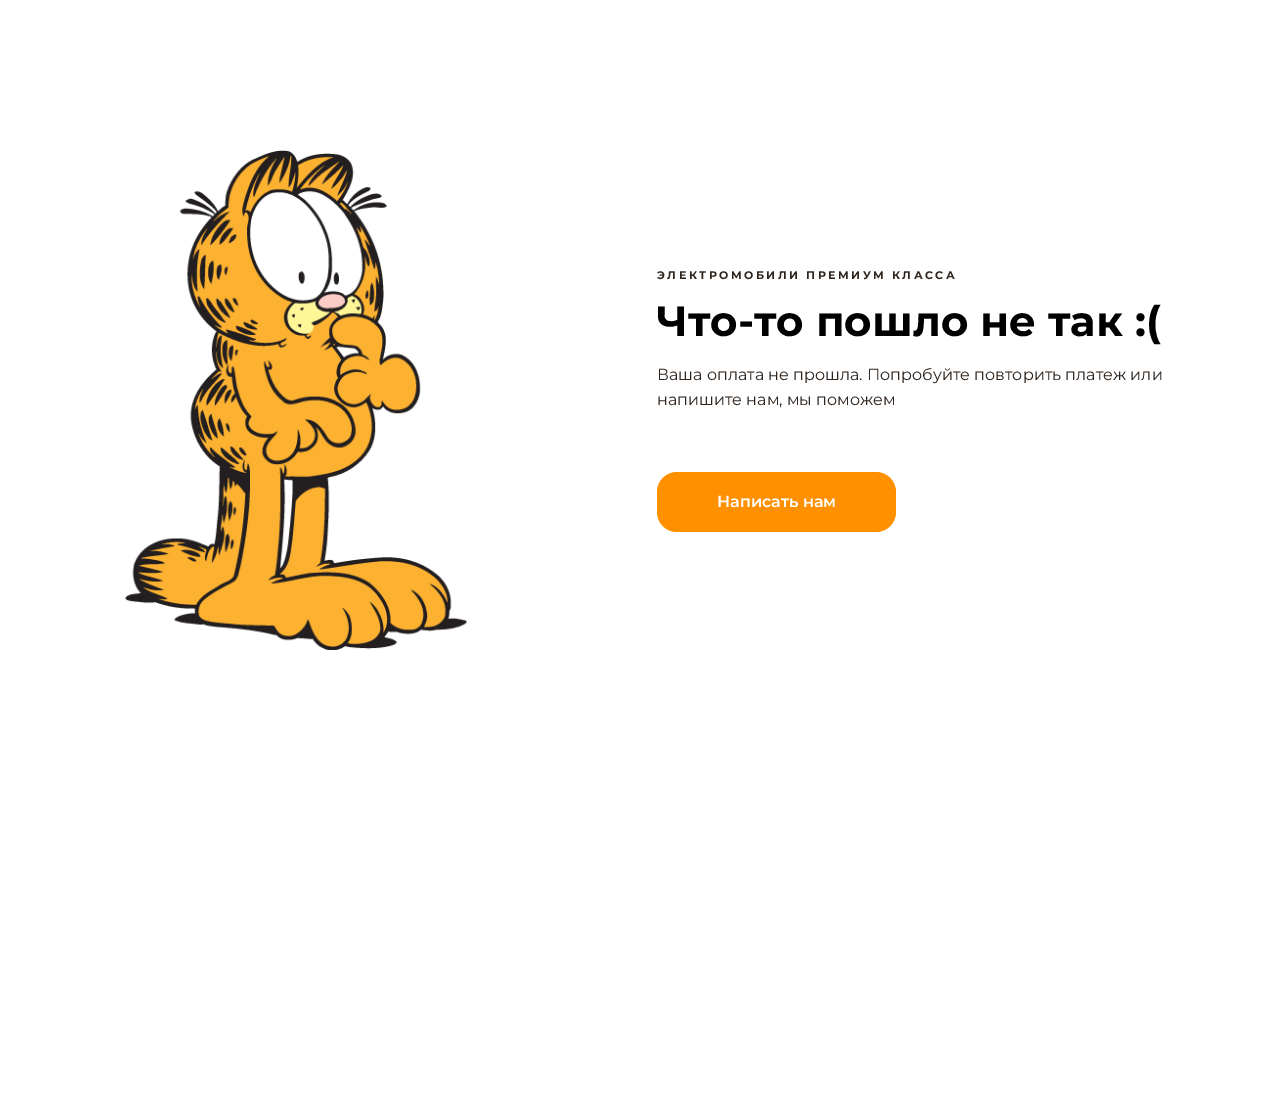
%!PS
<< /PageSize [1274 1102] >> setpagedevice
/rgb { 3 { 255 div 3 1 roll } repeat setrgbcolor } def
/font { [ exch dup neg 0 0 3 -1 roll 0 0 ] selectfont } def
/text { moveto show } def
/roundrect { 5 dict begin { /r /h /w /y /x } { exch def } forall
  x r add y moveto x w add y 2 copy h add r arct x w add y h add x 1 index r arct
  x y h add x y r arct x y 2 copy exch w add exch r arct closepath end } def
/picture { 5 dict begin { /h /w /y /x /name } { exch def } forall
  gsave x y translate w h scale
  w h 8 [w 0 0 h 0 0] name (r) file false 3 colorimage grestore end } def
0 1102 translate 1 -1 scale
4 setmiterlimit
255 255 255 rgb
0 0 1274 1102 rectfill
(img_01.rgb) 124 150 344 500 picture
255 145 0 rgb
657 472 239 60 20 roundrect fill
/Montserrat-Bold 11 font
46 36 29 rgb
657 279 moveto 2.5 0 (ЭЛЕКТРОМОБИЛИ ПРЕМИУМ КЛАССА) ashow
/Montserrat-Bold 42 font
0 0 0 rgb
(Что-то пошло не так :\() 657 336 text
/Montserrat-Regular 16 font
46 36 29 rgb
(Ваша оплата не прошла. Попробуйте повторить платеж или) 657 380 text
(напишите нам, мы поможем) 657 405 text
/Montserrat-SemiBold 16 font
255 255 255 rgb
(Написать нам) 717 507 text
showpage
